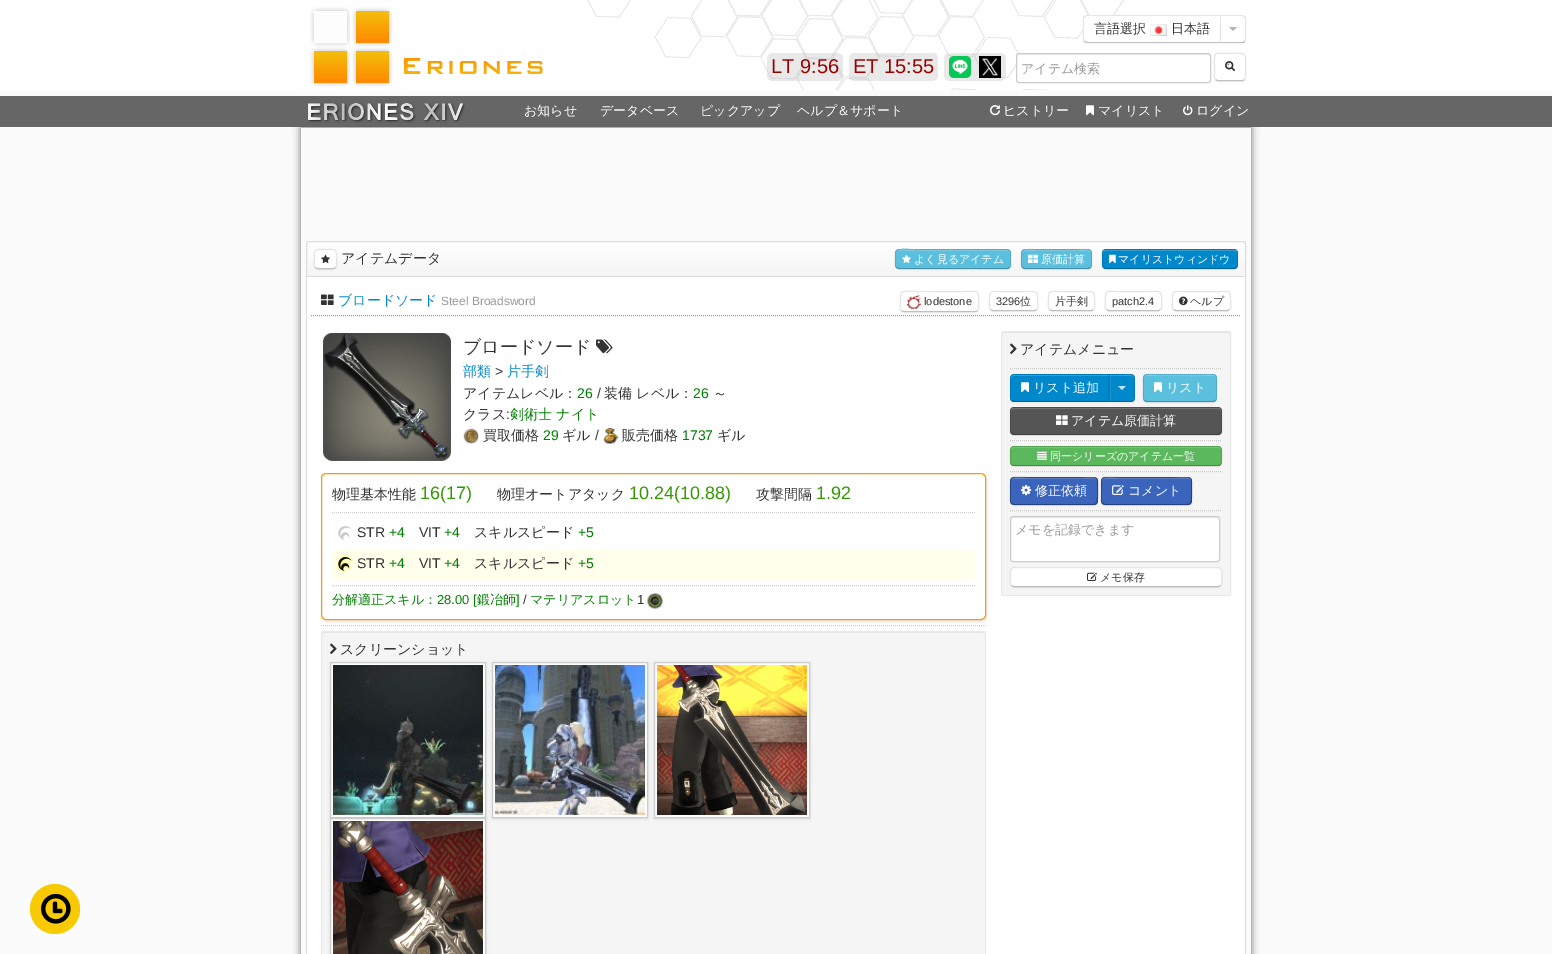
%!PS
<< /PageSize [1552 954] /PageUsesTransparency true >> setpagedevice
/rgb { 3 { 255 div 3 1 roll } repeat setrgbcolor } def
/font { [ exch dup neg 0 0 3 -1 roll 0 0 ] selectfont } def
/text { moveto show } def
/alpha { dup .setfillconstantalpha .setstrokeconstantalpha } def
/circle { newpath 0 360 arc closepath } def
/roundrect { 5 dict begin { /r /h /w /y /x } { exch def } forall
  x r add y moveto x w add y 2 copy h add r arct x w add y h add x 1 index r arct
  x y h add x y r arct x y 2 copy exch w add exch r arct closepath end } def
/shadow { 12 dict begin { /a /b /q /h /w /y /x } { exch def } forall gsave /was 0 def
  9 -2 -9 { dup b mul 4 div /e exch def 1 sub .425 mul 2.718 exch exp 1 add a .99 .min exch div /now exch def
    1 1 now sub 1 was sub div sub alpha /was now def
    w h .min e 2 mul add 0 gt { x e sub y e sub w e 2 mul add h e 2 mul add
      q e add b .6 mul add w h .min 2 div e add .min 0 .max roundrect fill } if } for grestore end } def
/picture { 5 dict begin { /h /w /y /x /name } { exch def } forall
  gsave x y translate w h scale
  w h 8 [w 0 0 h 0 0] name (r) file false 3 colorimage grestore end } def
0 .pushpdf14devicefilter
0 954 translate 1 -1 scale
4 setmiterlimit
255 255 255 rgb
0 0 1552 954 rectfill
(img_01.rgb) 587 0 537 90 picture
(img_02.rgb) 310 7 233 80 picture
(img_03.rgb) 767 53 76 28 picture
(img_04.rgb) 849 53 89 28 picture
(img_05.rgb) 944 53 62 28 picture
(img_06.rgb) 949 56 22 22 picture
(img_07.rgb) 979 56 22 22 picture
0 0 0 rgb
1083 16 138 28 4 1 0.05 shadow
255 255 255 rgb
1087 15 moveto 134 0 rlineto 0 28 rlineto -134 0 rlineto -2 0 -4 -2 -4 -4 rcurveto 0 -20 rlineto 0 -2 2 -4 4 -4 rcurveto closepath fill
229 229 229 rgb
1087 15 moveto -3 1 rlineto 1 1 rlineto 2 -1 rlineto 133 0 rlineto 1 -1 rlineto closepath fill
0.25 alpha
0 0 0 rgb
1221 43 moveto -1 -1 rlineto -133 0 rlineto -2 -1 rlineto -1 1 rlineto 3 1 rlineto closepath fill
0.1 alpha
1083 19 moveto 0 20 rlineto 0 1 0.5 2 1 3 rcurveto 1 -1 rlineto -1 0 -1 -1 -1 -2 rcurveto 0 -20 rlineto 0 -1 0 -2 1 -2 rcurveto -1 -1 rlineto -0.5 1 -1 2 -1 3 rcurveto closepath fill
1 alpha
(img_08.rgb) 1150 24 17 12 picture
1220 16 26 28 4 1 0.05 shadow
255 255 255 rgb
1220 15 moveto 22 0 rlineto 2 0 4 2 4 4 rcurveto 0 20 rlineto 0 2 -2 4 -4 4 rcurveto -22 0 rlineto closepath fill
229 229 229 rgb
1220 15 moveto 1 1 rlineto 21 0 rlineto 1 0 1.5 0.5 2 1 rcurveto 1 -1 rlineto -1 -0.5 -2 -1 -3 -1 rcurveto closepath fill
0.1 alpha
0 0 0 rgb
1246 39 moveto 0 -20 rlineto 0 -1 -0.5 -2 -1 -3 rcurveto -1 1 rlineto 0.5 0.5 1 1 1 2 rcurveto 0 20 rlineto 0 1 -0.5 1.5 -1 2 rcurveto 1 1 rlineto 0.5 -1 1 -2 1 -3 rcurveto closepath fill
0.25 alpha
1242 43 moveto 1 0 2 -0.5 3 -1 rcurveto -1 -1 rlineto -0.5 0.5 -1 1 -2 1 rcurveto -21 0 rlineto -1 1 rlineto closepath fill
0.1 alpha
1221 16 moveto -1 -1 rlineto 0 28 rlineto 1 -1 rlineto closepath fill
1 alpha
179 179 179 rgb
1229 27 moveto 8 0 rlineto -4 4 rlineto closepath fill
255 255 255 rgb
1016 53 195 30 3 roundrect fill
236 236 236 rgb
1019 55 moveto 189 0 rlineto 2 1 rlineto 0 1 rlineto 0 -1 rlineto 0 -1 -1 -2 -2 -2 rcurveto -189 0 rlineto -1 0 -2 1 -2 2 rcurveto 0 1 rlineto 0 -1 1 -2 2 -2 rcurveto closepath fill
204 204 204 rgb
1016.5 53.5 194 29 2.5 roundrect stroke
0 0 0 rgb
1214 54 32 28 4 1 0.05 shadow
255 255 255 rgb
1214 53 32 28 4 roundrect fill
191 191 191 rgb
1244.5 79.5 moveto -0.5 0.5 -1.5 1 -2.5 1 rcurveto -24 0 rlineto -1 0 -2 -0.5 -2.5 -1 rcurveto stroke
229 229 229 rgb
1215.5 79.5 moveto -1.5 -1.5 -1 -4 -1 -6 rcurveto 0 -6.5 rlineto 0 -16.5 -1.5 -13.5 15.5 -13.5 rcurveto 17 0 15.5 -3 15.5 13.5 rcurveto 0 6.5 rlineto 0 2 0.5 4.5 -1 6 rcurveto stroke
(img_09.rgb) 1225 61 11 11 picture
251 251 251 rgb
0 90 1552 864 rectfill
102 102 102 rgb
0 96 1552 31 rectfill
gsave
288 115 moveto 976 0 rlineto 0 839 rlineto -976 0 rlineto closepath 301 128 moveto 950 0 rlineto 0 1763 rlineto -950 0 rlineto closepath eoclip newpath
97 97 97 rgb
301 128 950 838 0 4 1 shadow
grestore
(img_10.rgb) 307 102 158 21 picture
(img_11.rgb) 990 105 11 11 picture
(img_12.rgb) 1086 105 8 11 picture
(img_13.rgb) 1183 105 10 11 picture
gsave
309 241 moveto 934 0 rlineto 1.5 0 3 1.5 3 3 rcurveto 0 33 rlineto -940 0 rlineto 0 -33 rlineto 0 -1.5 1.5 -3 3 -3 rcurveto closepath clip newpath
gsave 306 242 moveto 940 0 rlineto 0 34 rlineto -940 0 rlineto closepath clip newpath
<< /ShadingType 2 /ColorSpace /DeviceRGB /Coords [776 242 776 276] /Extend [true true] /Function << /FunctionType 2 /Domain [0 1] /C0 [1 1 1] /C1 [0.961 0.961 0.961] /N 1 >> >> shfill grestore
grestore
221 221 221 rgb
309 241.5 moveto 934 0 rlineto 1.5 0 2.5 1 2.5 2.5 rcurveto 0 32.5 rlineto -939 0 rlineto 0 -32.5 rlineto 0 -1.5 1 -2.5 2.5 -2.5 rcurveto closepath stroke
0 0 0 rgb
314 250 23 20 4 1 0.05 shadow
255 255 255 rgb
314 249 23 20 4 roundrect fill
0.25 alpha
0 0 0 rgb
335.5 267.5 moveto -0.5 0.5 -1.5 1 -2.5 1 rcurveto -15 0 rlineto -1 0 -2 -0.5 -2.5 -1 rcurveto stroke
0.1 alpha
315.5 267.5 moveto -2 -2 -1 -6.5 -1 -8.5 rcurveto 0 -11 0 -9.5 11 -9.5 rcurveto 11 0 11 -1.5 11 9.5 rcurveto 0 2 1 6.5 -1 8.5 rcurveto stroke
1 alpha
(img_14.rgb) 321 254 9 10 picture
895 250 116 20 4 1 0.05 shadow
91 192 222 rgb
895 249 116 20 4 roundrect fill
124 205 229 rgb
899 251 moveto 108 0 rlineto 2 0 3 1 3 3 rcurveto 0 -2 -1 -4 -3 -4 rcurveto -90 0 rlineto -2 0 -21 -5 -21 4 rcurveto 0 -2 1 -3 3 -3 rcurveto closepath fill
0.25 alpha
0 0 0 rgb
1009.5 267.5 moveto -2 1 rlineto -90.5 0 rlineto -18 0 rlineto -2.5 -1 rlineto stroke
0.1 alpha
896.5 267.5 moveto -2 -2 -1 -6 -1 -8.5 rcurveto 0 -3 -1.5 -9.5 3.5 -9.5 rcurveto 108 0 rlineto 5 0 3.5 6.5 3.5 9.5 rcurveto 0 2.5 1 6.5 -1 8.5 rcurveto stroke
1 alpha
(img_15.rgb) 902 254 9 10 picture
1021 250 71 20 4 1 0.05 shadow
91 192 222 rgb
1021 249 71 20 4 roundrect fill
124 205 229 rgb
1025 251 moveto 63 0 rlineto 2 0 3 1 3 3 rcurveto 0 -7 -9 -4 -13 -4 rcurveto -42 0 rlineto -5 0 -14 -3 -14 4 rcurveto 0 -2 1 -3 3 -3 rcurveto closepath fill
0.25 alpha
0 0 0 rgb
1090.5 267.5 moveto -2 1 rlineto -64 0 rlineto -2 -1 rlineto stroke
0.1 alpha
1022.5 267.5 moveto -1.5 -1.5 -1 -4.5 -1 -6.5 rcurveto 0 -13.5 -1 -11.5 14 -11.5 rcurveto 42 0 rlineto 15 0 14 -2 14 11.5 rcurveto 0 2 0.5 5 -1 6.5 rcurveto stroke
1 alpha
(img_16.rgb) 1028 254 10 9 picture
1102 250 136 20 4 1 0.05 shadow
0 136 204 rgb
1102 249 136 20 4 roundrect fill
51 160 214 rgb
1106 251 moveto 128 0 rlineto 2 0 3 1 3 3 rcurveto 0 -2 0 -4 -2 -4 rcurveto -130 0 rlineto -2 0 -2 2 -2 4 rcurveto 0 -2 1 -3 3 -3 rcurveto closepath fill
0.25 alpha
0 0 0 rgb
1236.5 267.5 moveto -0.5 0.5 -1.5 1 -2.5 1 rcurveto -128 0 rlineto -1 0 -2 -0.5 -2.5 -1 rcurveto stroke
0.1 alpha
1103.5 267.5 moveto -2 -2 -1 -8 -1 -10.5 rcurveto 0 -2.5 -0.5 -7.5 3.5 -7.5 rcurveto 128 0 rlineto 4 0 3.5 5 3.5 7.5 rcurveto 0 2.5 1 8.5 -1 10.5 rcurveto stroke
1 alpha
(img_17.rgb) 1109 254 7 10 picture
221 221 221 rgb
306 277 moveto 940 0 rlineto 0 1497 rlineto 0 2 -1 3 -3 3 rcurveto -934 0 rlineto -2 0 -3 -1 -3 -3 rcurveto closepath 307 277 moveto 938 0 rlineto 0 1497 rlineto 0 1 -1 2 -2 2 rcurveto -934 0 rlineto -1 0 -2 -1 -2 -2 rcurveto closepath eofill
255 255 255 rgb
307 277 938 677 rectfill
153 153 153 rgb
[1 1] 0 setdash
311 315.5 moveto 930 0 rlineto stroke
(img_18.rgb) 321 294 13 11 picture
0 0 0 rgb
900 292 79 21 4 1 0.05 shadow
255 255 255 rgb
900 291 79 21 4 roundrect fill
191 191 191 rgb
[] 0 setdash
977.5 310.5 moveto -0.5 0.5 -1.5 1 -2.5 1 rcurveto -71 0 rlineto -1 0 -2 -0.5 -2.5 -1 rcurveto stroke
229 229 229 rgb
901.5 310.5 moveto -1.5 -1.5 -1 -4.5 -1 -7 rcurveto 0 -14.5 -1 -12 15.5 -12 rcurveto 47 0 rlineto 16.5 0 15.5 -2.5 15.5 12 rcurveto 0 2.5 0.5 5.5 -1 7 rcurveto stroke
(img_19.rgb) 907 295 14 14 picture
0 0 0 rgb
989 292 49 20 4 1 0.05 shadow
255 255 255 rgb
989 291 49 20 4 roundrect fill
191 191 191 rgb
1036.5 309.5 moveto -0.5 0.5 -1.5 1 -2.5 1 rcurveto -41 0 rlineto -1 0 -2 -0.5 -2.5 -1 rcurveto stroke
229 229 229 rgb
990.5 309.5 moveto -2 -2 -1 -8 -1 -10.5 rcurveto 0 -9 1.5 -7.5 10.5 -7.5 rcurveto 27 0 rlineto 11 0 10.5 -0.5 10.5 9.5 rcurveto 0 2.5 1 6.5 -1 8.5 rcurveto stroke
0 0 0 rgb
1048 292 47 20 4 1 0.05 shadow
255 255 255 rgb
1048 291 47 20 4 roundrect fill
191 191 191 rgb
1093.5 309.5 moveto -0.5 0.5 -1.5 1 -2.5 1 rcurveto -39 0 rlineto -1 0 -2 -0.5 -2.5 -1 rcurveto stroke
229 229 229 rgb
1049.5 309.5 moveto -2 -2 -1 -8 -1 -10.5 rcurveto 0 -8.5 1 -7.5 10 -7.5 rcurveto 26 0 rlineto 10.5 0 10 -0.5 10 9.5 rcurveto 0 2.5 1 6.5 -1 8.5 rcurveto stroke
0 0 0 rgb
1105 292 57 20 4 1 0.05 shadow
255 255 255 rgb
1105 291 57 20 4 roundrect fill
191 191 191 rgb
1160.5 309.5 moveto -2 1 rlineto -50 0 rlineto -2 -1 rlineto stroke
229 229 229 rgb
1106.5 309.5 moveto -2 -2 -1 -6 -1 -8.5 rcurveto 0 -11 0 -9.5 11.5 -9.5 rcurveto 33 0 rlineto 9.5 0 11.5 -2 11.5 7.5 rcurveto 0 2.5 1 8.5 -1 10.5 rcurveto stroke
0 0 0 rgb
1172 292 59 20 4 1 0.05 shadow
255 255 255 rgb
1172 291 59 20 4 roundrect fill
191 191 191 rgb
1229.5 309.5 moveto -2 1 rlineto -52 0 rlineto -2 -1 rlineto stroke
229 229 229 rgb
1173.5 309.5 moveto -1.5 -1.5 -1 -4.5 -1 -6.5 rcurveto 0 -12.5 -1 -11.5 12 -11.5 rcurveto 34 0 rlineto 12 0 12 -1.5 12 9.5 rcurveto 0 2.5 1 6.5 -1 8.5 rcurveto stroke
(img_20.rgb) 1179 296 9 10 picture
(img_21.rgb) 323 333 128 128 picture
(img_22.rgb) 596 339 17 15 picture
(img_23.rgb) 463 428 16 16 picture
(img_24.rgb) 603 428 16 16 picture
231 231 231 rgb
322 475 665 147 5 1.5 1 shadow
255 255 255 rgb
321.5 473.5 664 146 4.5 roundrect gsave fill grestore
255 153 0 rgb
stroke
204 204 204 rgb
[1 1] 0 setdash
332 512.5 moveto 643 0 rlineto stroke
(img_25.rgb) 338 526 14 14 picture
255 255 236 rgb
332 549 643 31 5 roundrect fill
(img_26.rgb) 337 556 16 16 picture
204 204 204 rgb
332 585.5 moveto 643 0 rlineto stroke
(img_27.rgb) 647 593 16 16 picture
321 625.5 moveto 665 0 rlineto stroke
245 245 245 rgb
321 631 665 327 4 roundrect fill
233 233 233 rgb
325 633 moveto 657 0 rlineto 2 0 3 1 3 3 rcurveto 0 -1 rlineto 0 -2 -1 -3 -3 -3 rcurveto -657 0 rlineto -2 0 -3 1 -3 3 rcurveto 0 1 rlineto 0 -2 1 -3 3 -3 rcurveto closepath fill
0.05 alpha
0 0 0 rgb
[] 0 setdash
321.5 631.5 664 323 rectstroke
1 alpha
(img_28.rgb) 330 643 7 11 picture
330 663 156 156 0 1.5 0.1 shadow
492 663 156 156 0 1.5 0.1 shadow
654 663 156 156 0 1.5 0.1 shadow
255 255 255 rgb
330.5 662.5 moveto 155 0 rlineto 0 155 rlineto -155 0 rlineto closepath gsave fill grestore
204 204 204 rgb
stroke
255 255 255 rgb
492.5 662.5 moveto 155 0 rlineto 0 155 rlineto -155 0 rlineto closepath gsave fill grestore
204 204 204 rgb
stroke
255 255 255 rgb
654.5 662.5 moveto 155 0 rlineto 0 155 rlineto -155 0 rlineto closepath gsave fill grestore
204 204 204 rgb
stroke
(img_29.rgb) 333 665 150 150 picture
(img_30.rgb) 495 665 150 150 picture
(img_31.rgb) 657 665 150 150 picture
0 0 0 rgb
330 819 156 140 0 1.5 0.1 shadow
255 255 255 rgb
330.5 818.5 moveto 155 0 rlineto 0 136 rlineto -155 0 rlineto closepath gsave fill grestore
204 204 204 rgb
stroke
(img_32.rgb) 333 821 150 133 picture
245 245 245 rgb
1001 331 230 265 4 roundrect fill
233 233 233 rgb
1005 333 moveto 222 0 rlineto 2 0 3 1 3 3 rcurveto 0 -1 rlineto 0 -2 -1 -3 -3 -3 rcurveto -222 0 rlineto -2 0 -3 1 -3 3 rcurveto 0 1 rlineto 0 -2 1 -3 3 -3 rcurveto closepath fill
0.05 alpha
0 0 0 rgb
1001.5 331.5 229 264 rectstroke
1 alpha
(img_28.rgb) 1010 343 7 11 picture
204 204 204 rgb
[1 1] 0 setdash
1010 368.5 moveto 212 0 rlineto stroke
0 0 0 rgb
1010 375 100 28 4 1 0.05 shadow
0 136 204 rgb
1014 374 moveto 96 0 rlineto 0 28 rlineto -96 0 rlineto -2 0 -4 -2 -4 -4 rcurveto 0 -20 rlineto 0 -2 2 -4 4 -4 rcurveto closepath fill
51 160 214 rgb
1014 376 moveto 95 0 rlineto 0 -1 rlineto -95 0 rlineto -2 0 -3 1 -3 3 rcurveto 0 1 rlineto 0 -2 1 -3 3 -3 rcurveto closepath fill
0.1 alpha
0 0 0 rgb
1014 374 moveto -3 1 rlineto 1 1 rlineto 2 -1 rlineto 95 0 rlineto 1 -1 rlineto closepath fill
0.25 alpha
1110 402 moveto -1 -1 rlineto -95 0 rlineto -2 -1 rlineto -1 1 rlineto 3 1 rlineto closepath fill
0.1 alpha
1010 378 moveto 0 20 rlineto 0 1 0.5 2 1 3 rcurveto 1 -1 rlineto -1 0 -1 -1 -1 -2 rcurveto 0 -20 rlineto 0 -1 0 -2 1 -2 rcurveto -1 -1 rlineto -0.5 1 -1 2 -1 3 rcurveto closepath fill
1 alpha
(img_33.rgb) 1021 382 8 11 picture
1109 375 26 28 4 1 0.05 shadow
0 136 204 rgb
1109 374 moveto 22 0 rlineto 2 0 4 2 4 4 rcurveto 0 20 rlineto 0 2 -2 4 -4 4 rcurveto -22 0 rlineto closepath fill
51 160 214 rgb
1110 376 moveto 21 0 rlineto 2 0 3 1 3 3 rcurveto 0 -6 -5.5 -4 -10 -4 rcurveto -14 0 rlineto closepath fill
0.12 alpha
255 255 255 rgb
1110 375 1 26 rectfill
0.1 alpha
0 0 0 rgb
1109 374 moveto 1 1 rlineto 21 0 rlineto 1 0 1.5 0.5 2 1 rcurveto 1 -1 rlineto -1 -0.5 -2 -1 -3 -1 rcurveto closepath fill
1135 398 moveto 0 -20 rlineto 0 -1 -0.5 -2 -1 -3 rcurveto -1 1 rlineto 0.5 0.5 1 1 1 2 rcurveto 0 20 rlineto 0 1 -0.5 1.5 -1 2 rcurveto 1 1 rlineto 0.5 -1 1 -2 1 -3 rcurveto closepath fill
0.25 alpha
1131 402 moveto 1 0 2 -0.5 3 -1 rcurveto -1 -1 rlineto -0.5 0.5 -1 1 -2 1 rcurveto -21 0 rlineto -1 1 rlineto closepath fill
0.1 alpha
1110 375 moveto -1 -1 rlineto 0 28 rlineto 1 -1 rlineto closepath fill
1 alpha
191 225 242 rgb
1118 386 moveto 8 0 rlineto -4 4 rlineto closepath fill
0 0 0 rgb
1143 375 74 28 4 1 0.05 shadow
91 192 222 rgb
1143 374 74 28 4 roundrect fill
124 205 229 rgb
1147 376 moveto 66 0 rlineto 2 0 3 1 3 3 rcurveto 0 -7 -10 -4 -14 -4 rcurveto -44 0 rlineto -4 0 -14 -3 -14 4 rcurveto 0 -2 1 -3 3 -3 rcurveto closepath fill
0.25 alpha
0 0 0 rgb
[] 0 setdash
1215.5 400.5 moveto -2 1 rlineto -67 0 rlineto -2 -1 rlineto stroke
0.1 alpha
1144.5 400.5 moveto -2 -2.5 -1 -10 -1 -12.5 rcurveto 0 -15.5 -2 -13.5 14.5 -13.5 rcurveto 44 0 rlineto 16.5 0 14.5 -2 14.5 13.5 rcurveto 0 2.5 1 10 -1 12.5 rcurveto stroke
1 alpha
(img_34.rgb) 1154 382 8 11 picture
1010 408 212 28 4 1 0.05 shadow
85 85 85 rgb
1010 407 212 28 4 roundrect fill
119 119 119 rgb
1014 409 moveto 204 0 rlineto 2 0 3 1 3 3 rcurveto 0 -1 rlineto 0 -2 -1 -3 -3 -3 rcurveto -204 0 rlineto -2 0 -3 1 -3 3 rcurveto 0 1 rlineto 0 -2 1 -3 3 -3 rcurveto closepath fill
0.25 alpha
0 0 0 rgb
1220.5 433.5 moveto -0.5 0.5 -1.5 1 -2.5 1 rcurveto -204 0 rlineto -1 0 -2 -0.5 -2.5 -1 rcurveto stroke
0.1 alpha
1011.5 433.5 moveto -2 -2.5 -1 -13 -1 -16 rcurveto 0 -2.5 -1.5 -10 3.5 -10 rcurveto 204 0 rlineto 5 0 3.5 7.5 3.5 10 rcurveto 0 3 1 13.5 -1 16 rcurveto stroke
1 alpha
(img_35.rgb) 1056 415 12 10 picture
204 204 204 rgb
[1 1] 0 setdash
1010 440.5 moveto 212 0 rlineto stroke
0 0 0 rgb
1010 447 212 20 4 1 0.05 shadow
92 184 92 rgb
1010 446 212 20 4 roundrect fill
125 198 125 rgb
1014 448 moveto 204 0 rlineto 2 0 3 1 3 3 rcurveto 0 -1 rlineto 0 -2 -1 -3 -3 -3 rcurveto -204 0 rlineto -2 0 -3 1 -3 3 rcurveto 0 1 rlineto 0 -2 1 -3 3 -3 rcurveto closepath fill
0.25 alpha
0 0 0 rgb
[] 0 setdash
1220.5 464.5 moveto -0.5 0.5 -1.5 1 -2.5 1 rcurveto -204 0 rlineto -1 0 -2 -0.5 -2.5 -1 rcurveto stroke
0.1 alpha
1011.5 464.5 moveto -2 -2 -1 -8 -1 -10.5 rcurveto 0 -2.5 -0.5 -7.5 3.5 -7.5 rcurveto 204 0 rlineto 4 0 3.5 5 3.5 7.5 rcurveto 0 2.5 1 8.5 -1 10.5 rcurveto stroke
1 alpha
(img_36.rgb) 1037 451 10 9 picture
204 204 204 rgb
[1 1] 0 setdash
1010 471.5 moveto 212 0 rlineto stroke
0 0 0 rgb
1010 478 88 28 4 1 0.05 shadow
59 100 189 rgb
1010 477 88 28 4 roundrect fill
98 131 202 rgb
1014 479 moveto 80 0 rlineto 2 0 3 1 3 3 rcurveto 0 -8 -13 -4 -16 -4 rcurveto -54 0 rlineto -3 0 -16 -4 -16 4 rcurveto 0 -2 1 -3 3 -3 rcurveto closepath fill
0.35 alpha
0 0 0 rgb
[] 0 setdash
1096.5 478.5 moveto 2 2.5 1 10 1 12.5 rcurveto 0 16.5 1.5 13.5 -17 13.5 rcurveto -66.5 0 rlineto -2.5 -1 rlineto stroke
0.25 alpha
1011.5 503.5 moveto -2 -2.5 -1 -10 -1 -12.5 rcurveto 0 -16.5 -1.5 -13.5 17 -13.5 rcurveto 66.5 0 rlineto 2.5 1 rlineto stroke
1 alpha
(img_37.rgb) 1021 485 11 11 picture
1101 478 91 28 4 1 0.05 shadow
59 100 189 rgb
1101 477 91 28 4 roundrect fill
98 131 202 rgb
1105 479 moveto 83 0 rlineto 2 0 3 1 3 3 rcurveto 0 -8 -13 -4 -17 -4 rcurveto -55 0 rlineto -4 0 -17 -4 -17 4 rcurveto 0 -2 1 -3 3 -3 rcurveto closepath fill
0.35 alpha
0 0 0 rgb
1190.5 478.5 moveto 2 2.5 1 10 1 12.5 rcurveto 0 16.5 1.5 13.5 -17.5 13.5 rcurveto -69 0 rlineto -2.5 -1 rlineto stroke
0.25 alpha
1102.5 503.5 moveto -2 -2.5 -1 -10 -1 -12.5 rcurveto 0 -16.5 -1.5 -13.5 17.5 -13.5 rcurveto 69 0 rlineto 2.5 1 rlineto stroke
1 alpha
(img_38.rgb) 1112 485 12 10 picture
204 204 204 rgb
[1 1] 0 setdash
1010 510.5 moveto 212 0 rlineto stroke
255 255 255 rgb
1010 516 210 46 3 roundrect fill
236 236 236 rgb
1013 518 moveto 204 0 rlineto 2 1 rlineto 0 1 rlineto 0 -1 0 -3 -2 -3 rcurveto -204 0 rlineto -2 0 -2 2 -2 3 rcurveto 0 -1 1 -2 2 -2 rcurveto closepath fill
204 204 204 rgb
[] 0 setdash
1010.5 516.5 209 45 2.5 roundrect stroke
0 0 0 rgb
1010 568 212 20 4 1 0.05 shadow
255 255 255 rgb
1010 567 212 20 4 roundrect fill
0.25 alpha
0 0 0 rgb
1220.5 585.5 moveto -0.5 0.5 -1.5 1 -2.5 1 rcurveto -204 0 rlineto -1 0 -2 -0.5 -2.5 -1 rcurveto stroke
0.1 alpha
1011.5 585.5 moveto -2 -2 -1 -8 -1 -10.5 rcurveto 0 -2.5 -0.5 -7.5 3.5 -7.5 rcurveto 204 0 rlineto 4 0 3.5 5 3.5 7.5 rcurveto 0 2.5 1 8.5 -1 10.5 rcurveto stroke
1 alpha
(img_39.rgb) 1087 572 10 9 picture
247 202 4 rgb
55 909 25 circle fill
(img_40.rgb) 41 893 30 31 picture
/LiberationSans-Regular 20 font
153 0 0 rgb
(LT 9:56) 771 73 text
(ET 15:55) 853 73 text
/WenQuanYiZenHei-Medium 13 font
51 51 51 rgb
(言語選択) 1094 33 text
(日本語) 1171 33 text
153 153 153 rgb
(アイテム検索) 1021 73 text
255 255 255 rgb
(お知らせ) 524 115 text
(データベース) 600 115 text
(ピックアップ) 700 115 text
(ヘルプ＆サポート) 797 115 text
(ヒストリー) 1003 115 text
(マイリスト) 1098 115 text
(ログイン) 1196 115 text
/WenQuanYiZenHei-Medium 14 font
51 51 51 rgb
(アイテムデータ) 341 263 text
/WenQuanYiZenHei-Medium 11 font
255 255 255 rgb
(よく見るアイテム) 914 263 text
(原価計算) 1041 263 text
(マイリストウィンドウ) 1118 263 text
/WenQuanYiZenHei-Medium 14 font
0 136 204 rgb
(ブロードソード) 338 305 text
/LiberationSans-Regular 12 font
153 153 153 rgb
(Steel Broadsword) 441 305 text
/LiberationSans-Regular 11 font
51 51 51 rgb
(lodestone) 924 305 text
(3296) 996 305 text
/WenQuanYiZenHei-Medium 11 font
(位) 1020 305 text
(片手剣) 1055 305 text
/LiberationSans-Regular 11 font
(patch2.4) 1112 305 text
/WenQuanYiZenHei-Medium 11 font
(ヘルプ) 1190 305 text
/WenQuanYiZenHei-Medium 18 font
(ブロードソード) 463 353 text
/WenQuanYiZenHei-Medium 14 font
0 136 204 rgb
(部類) 463 376 text
/LiberationSans-Regular 14 font
51 51 51 rgb
(>) 495 376 text
/WenQuanYiZenHei-Medium 14 font
0 136 204 rgb
(片手剣) 507 376 text
51 51 51 rgb
(アイテムレベル：) 463 398 text
/LiberationSans-Regular 14 font
0 128 0 rgb
(26) 577 398 text
51 51 51 rgb
(/) 597 398 text
/WenQuanYiZenHei-Medium 14 font
(装備 レベル：) 604 398 text
/LiberationSans-Regular 14 font
0 128 0 rgb
(26) 693 398 text
/WenQuanYiZenHei-Medium 14 font
51 51 51 rgb
(～) 713 398 text
(クラス) 463 419 text
/LiberationSans-Regular 14 font
(:) 506 419 text
/WenQuanYiZenHei-Medium 14 font
0 128 0 rgb
(剣術士 ナイト) 510 419 text
51 51 51 rgb
(買取価格) 483 440 text
/LiberationSans-Regular 14 font
0 128 0 rgb
(29) 543 440 text
/WenQuanYiZenHei-Medium 14 font
51 51 51 rgb
(ギル) 562 440 text
/LiberationSans-Regular 14 font
(/) 595 440 text
/WenQuanYiZenHei-Medium 14 font
(販売価格) 622 440 text
/LiberationSans-Regular 14 font
0 128 0 rgb
(1737) 682 440 text
/WenQuanYiZenHei-Medium 14 font
51 51 51 rgb
(ギル) 717 440 text
(物理基本性能) 332 499 text
/LiberationSans-Regular 18 font
51 153 0 rgb
(16\(17\)) 420 499 text
/WenQuanYiZenHei-Medium 14 font
51 51 51 rgb
(物理オートアタック) 497 499 text
/LiberationSans-Regular 18 font
51 153 0 rgb
(10.24\(10.88\)) 629 499 text
/WenQuanYiZenHei-Medium 14 font
51 51 51 rgb
(攻撃間隔) 756 499 text
/LiberationSans-Regular 18 font
51 153 0 rgb
(1.92) 816 499 text
/LiberationSans-Regular 14 font
51 51 51 rgb
(STR) 357 537 text
0 128 0 rgb
(+4) 389 537 text
51 51 51 rgb
(VIT) 419 537 text
0 128 0 rgb
(+4) 444 537 text
/WenQuanYiZenHei-Medium 14 font
51 51 51 rgb
(スキルスピード) 474 537 text
/LiberationSans-Regular 14 font
0 128 0 rgb
(+5) 578 537 text
51 51 51 rgb
(STR) 357 568 text
0 128 0 rgb
(+4) 389 568 text
51 51 51 rgb
(VIT) 419 568 text
0 128 0 rgb
(+4) 444 568 text
/WenQuanYiZenHei-Medium 14 font
51 51 51 rgb
(スキルスピード) 474 568 text
/LiberationSans-Regular 14 font
0 128 0 rgb
(+5) 578 568 text
/WenQuanYiZenHei-Medium 13 font
(分解適正スキル：) 332 604 text
/LiberationSans-Regular 13 font
(28.00 [) 437 604 text
/WenQuanYiZenHei-Medium 13 font
(鍛冶師) 477 604 text
/LiberationSans-Regular 13 font
(]) 516 604 text
51 51 51 rgb
(/) 523 604 text
/WenQuanYiZenHei-Medium 13 font
0 128 0 rgb
(マテリアスロット) 530 604 text
/LiberationSans-Regular 13 font
51 51 51 rgb
(1) 637 604 text
/WenQuanYiZenHei-Medium 14 font
(スクリーンショット) 340 654 text
(アイテムメニュー) 1020 354 text
/WenQuanYiZenHei-Medium 13 font
255 255 255 rgb
(リスト追加) 1033 392 text
(リスト) 1166 392 text
(アイテム原価計算) 1071 425 text
/WenQuanYiZenHei-Medium 11 font
(同一シリーズのアイテム一覧) 1050 460 text
/WenQuanYiZenHei-Medium 13 font
(修正依頼) 1035 495 text
(コメント) 1128 495 text
153 153 153 rgb
(メモを記録できます) 1015 534 text
/WenQuanYiZenHei-Medium 11 font
51 51 51 rgb
(メモ保存) 1100 581 text
.poppdf14devicefilter showpage
